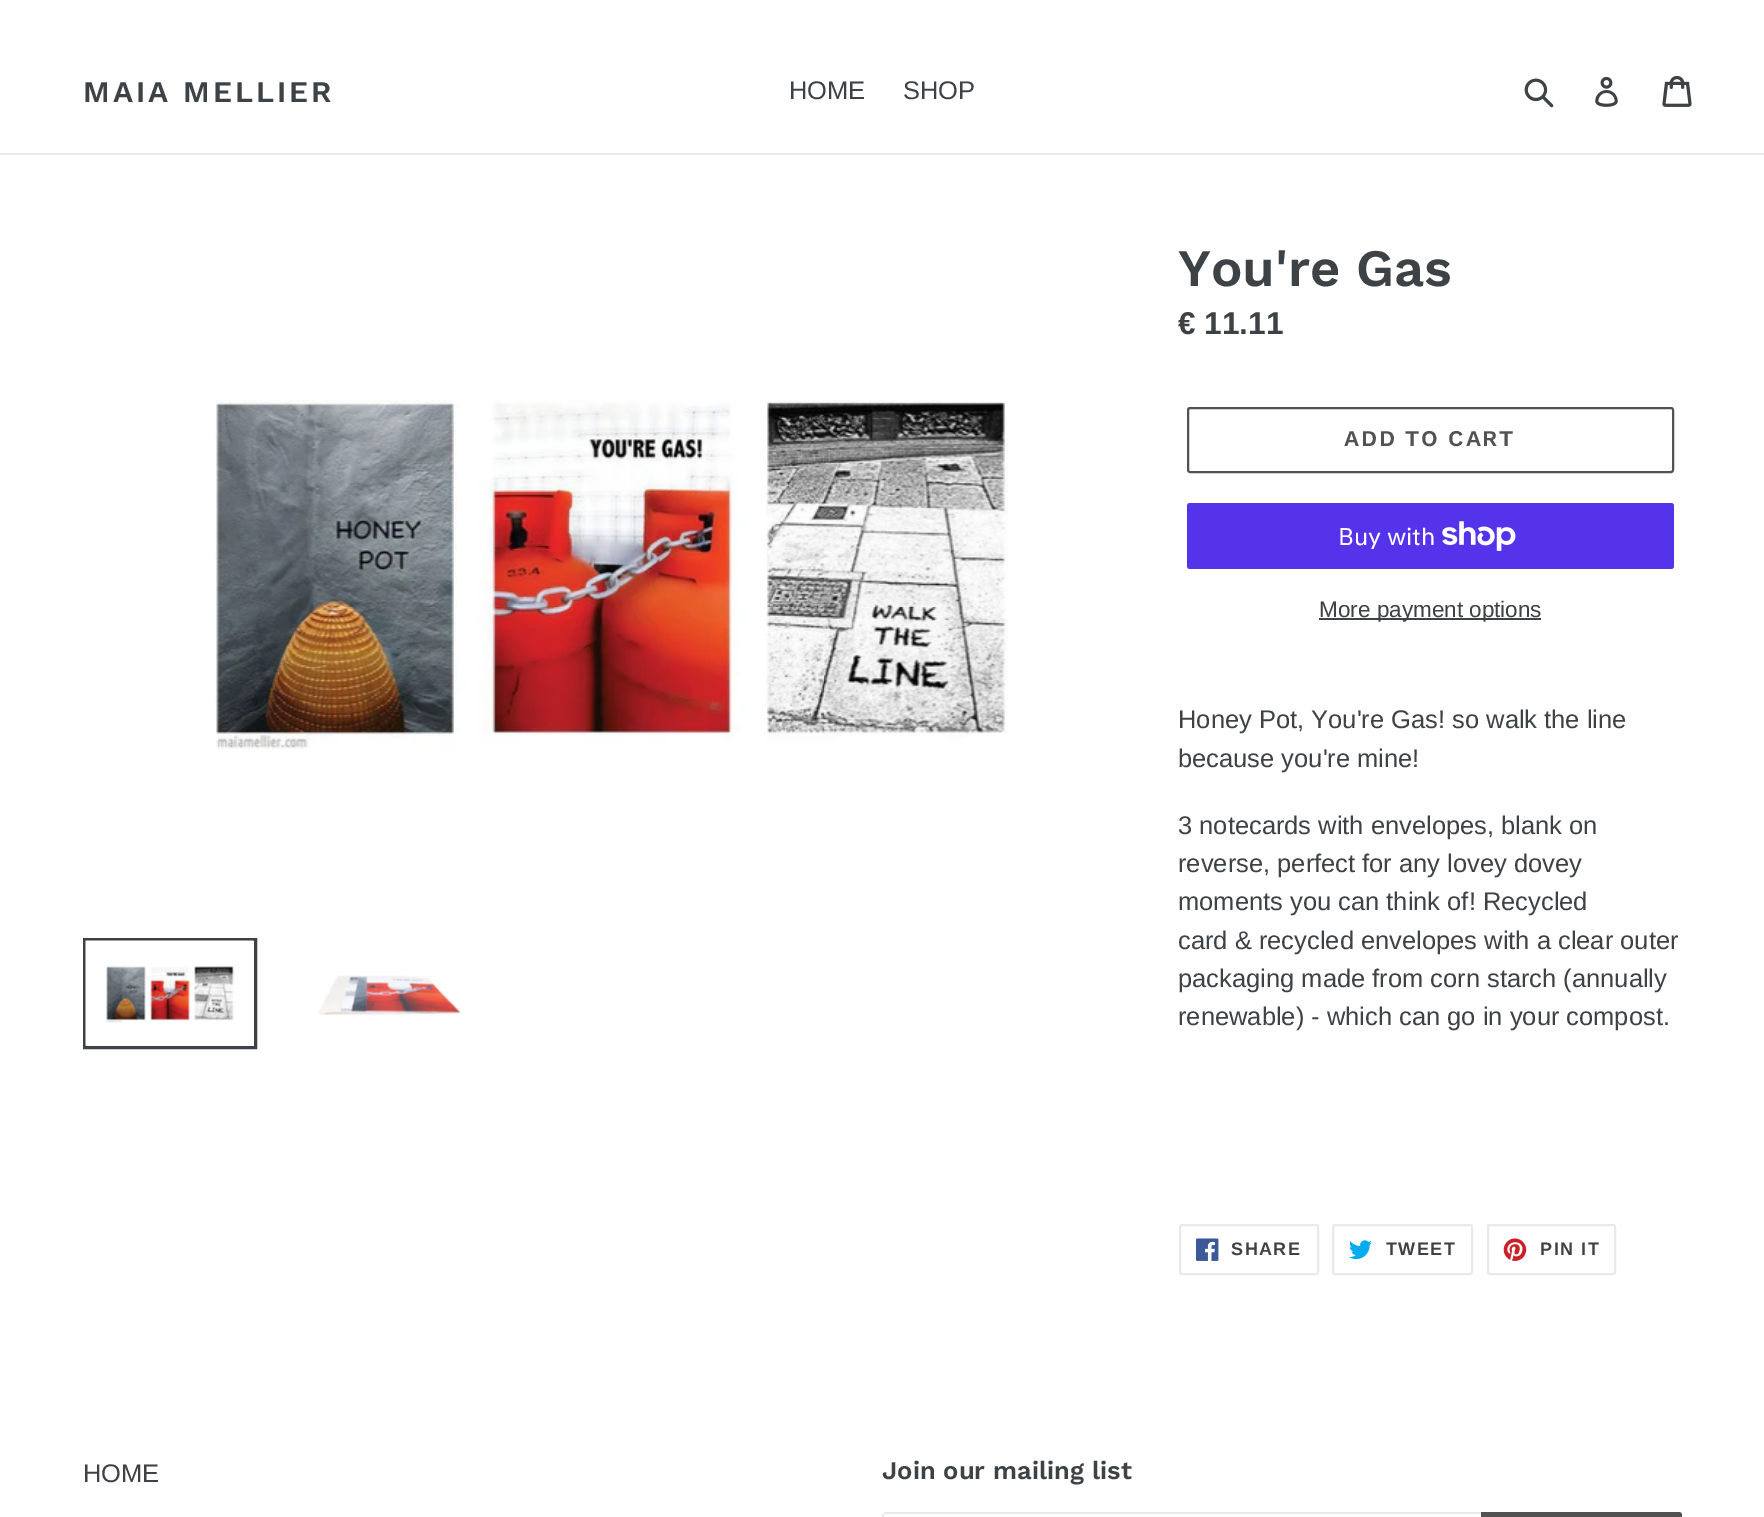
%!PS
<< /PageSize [1764 1517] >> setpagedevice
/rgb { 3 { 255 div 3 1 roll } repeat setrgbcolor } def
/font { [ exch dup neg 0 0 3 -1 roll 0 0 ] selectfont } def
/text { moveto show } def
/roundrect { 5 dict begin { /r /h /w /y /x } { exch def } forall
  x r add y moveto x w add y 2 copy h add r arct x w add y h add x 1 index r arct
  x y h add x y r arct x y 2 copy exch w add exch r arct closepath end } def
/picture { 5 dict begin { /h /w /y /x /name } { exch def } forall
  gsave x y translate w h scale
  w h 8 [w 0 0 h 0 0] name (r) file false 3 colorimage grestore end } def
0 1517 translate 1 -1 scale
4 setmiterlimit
255 255 255 rgb
0 0 1764 1517 rectfill
232 233 235 rgb
0 153 1764 2 rectfill
(img_01.rgb) 1524 78 30 30 picture
(img_02.rgb) 1595 77 23 30 picture
(img_03.rgb) 1662 75 30 32 picture
(img_04.rgb) 214 400 794 350 picture
61 66 70 rgb
3 setlinewidth
84.5 939.5 171 108 rectstroke
(img_05.rgb) 85 940 169 106 picture
(img_06.rgb) 318 975 143 40 picture
83 81 81 rgb
2 setlinewidth
1188 408 485 64 2 roundrect stroke
84 51 235 rgb
1187 503 487 66 3 roundrect fill
(img_07.rgb) 1442 521 74 30 picture
61 66 70 rgb
1319 618 222 2 rectfill
232 233 235 rgb
1180 1225 138 49 2 roundrect stroke
(img_08.rgb) 1196 1238 23 23 picture
1333 1225 139 49 2 roundrect stroke
(img_09.rgb) 1349 1240 23 20 picture
1488 1225 127 49 2 roundrect stroke
(img_10.rgb) 1503 1238 24 23 picture
884 1512 597 2 rectfill
882 1514 2 3 rectfill
83 81 81 rgb
1481 1512 moveto 198 0 rlineto 1.5 0 3 1.5 3 3 rcurveto 0 2 rlineto 0 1.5 -1.5 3 -3 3 rcurveto -198 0 rlineto closepath fill
/WorkSans-SemiBold 30 font
61 66 70 rgb
83 102 moveto 3 0 (MAIA MELLIER) ashow
/LiberationSans-Regular 25.5 font
(HOME) 789 99 text
(SHOP) 903 99 text
/WorkSans-SemiBold 52.5 font
(You're Gas) 1178 286 text
/LiberationSans-Bold 31.5 font
(€ 11.11) 1178 334 text
/WorkSans-SemiBold 22.5 font
83 81 81 rgb
1344 446 moveto 1.75 0 (ADD TO CART) ashow
/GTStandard-Regular 24 font
255 255 255 rgb
(Buy with) 1338 545 text
/LiberationSans-Regular 22.5 font
61 66 70 rgb
(More payment options) 1319 617 text
/LiberationSans-Regular 25.5 font
(Honey Pot, You're Gas! so walk the line) 1178 728 text
(because you're mine!) 1178 767 text
(3 notecards with envelopes, blank on) 1178 834 text
(reverse, perfect for any lovey dovey) 1178 872 text
(moments you can think of! Recycled) 1178 910 text
(card & recycled envelopes with a clear outer) 1178 949 text
(packaging made from corn starch \(annually) 1178 987 text
(renewable\) - which can go in your compost.) 1178 1025 text
/LiberationSans-Bold 18 font
1231 1255 moveto 1.5 0 (SHARE) ashow
1386 1255 moveto 1.5 0 (TWEET) ashow
1540 1255 moveto 1.5 0 (PIN IT) ashow
/LiberationSans-Regular 25.5 font
(HOME) 83 1482 text
/WorkSans-SemiBold 25.5 font
(Join our mailing list) 882 1479 text
showpage
